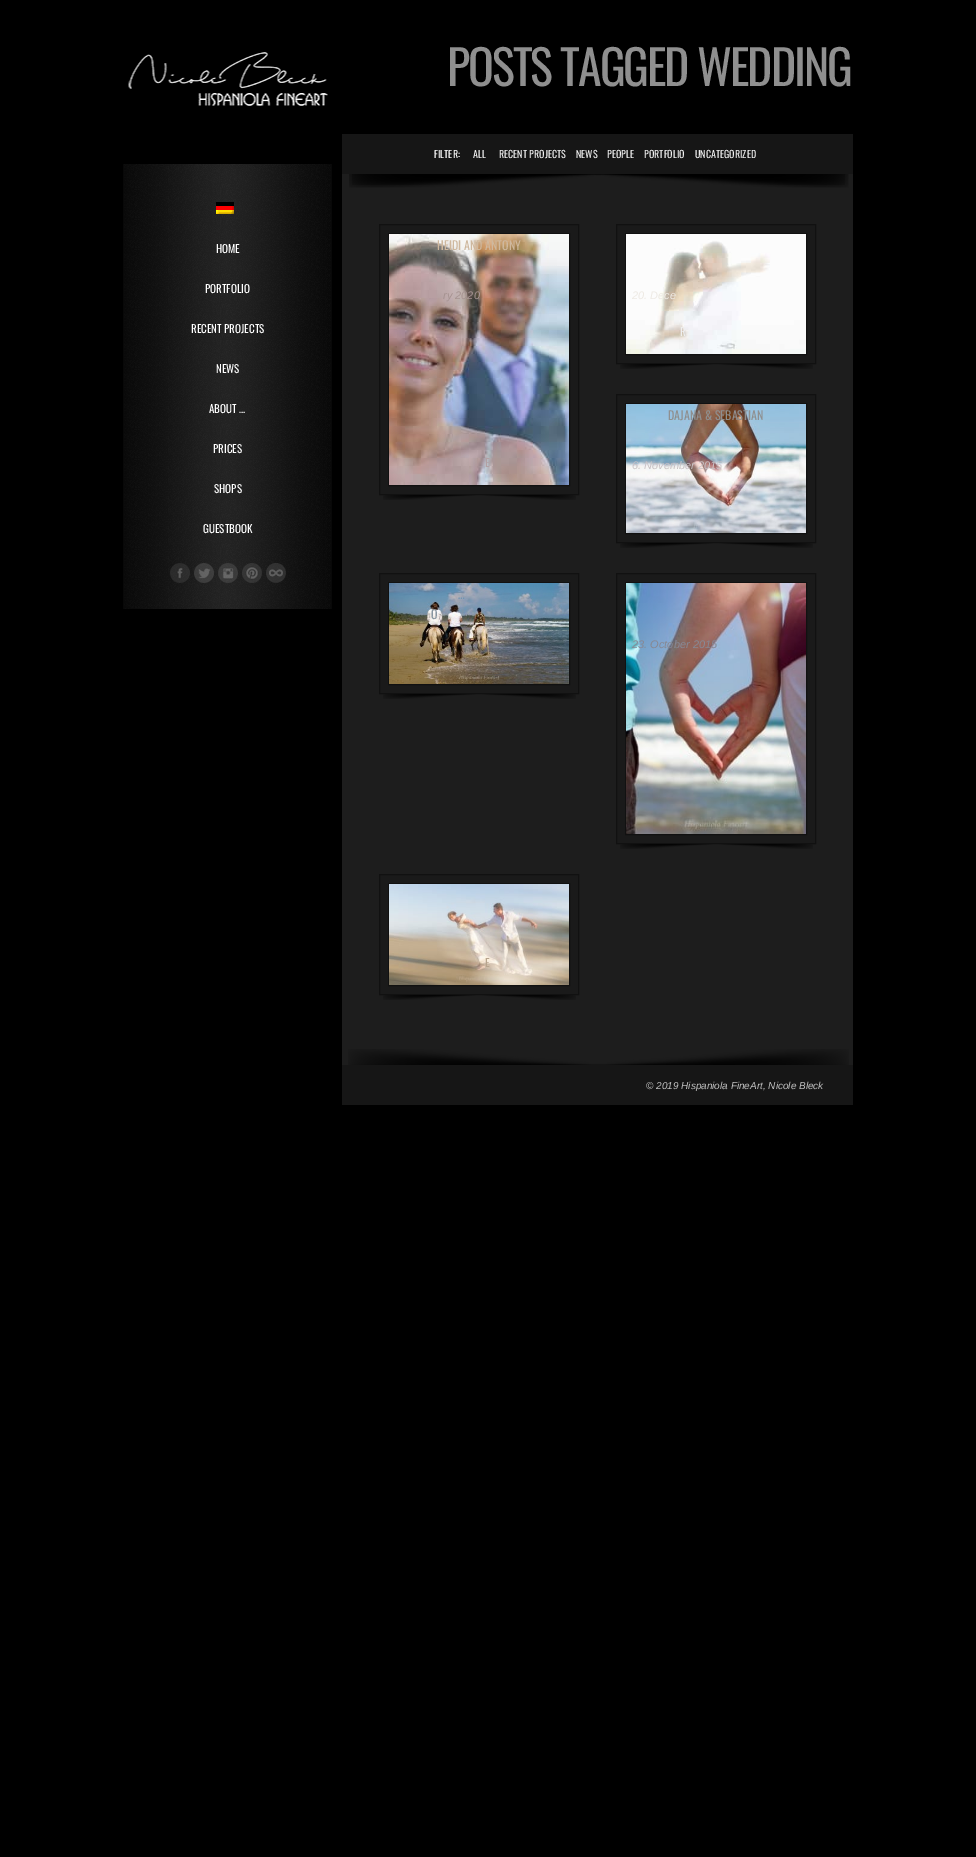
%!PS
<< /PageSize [976 1857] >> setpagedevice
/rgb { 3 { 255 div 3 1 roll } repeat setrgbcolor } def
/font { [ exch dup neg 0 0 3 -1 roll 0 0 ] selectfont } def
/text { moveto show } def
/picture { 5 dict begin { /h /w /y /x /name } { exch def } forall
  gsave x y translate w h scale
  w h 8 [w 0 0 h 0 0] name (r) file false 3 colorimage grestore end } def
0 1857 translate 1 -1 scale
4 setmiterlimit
0 0 0 rgb
0 0 976 1857 rectfill
(img_01.rgb) 128 52 200 54 picture
22 22 22 rgb
342 134 511 40 rectfill
29 29 29 rgb
342 174 511 891 rectfill
(img_02.rgb) 349 174 500 14 picture
(img_03.rgb) 349 174 499 13 picture
(img_04.rgb) 352 174 493 11 picture
26 26 26 rgb
379.5 224.5 moveto 199 0 rlineto 0 270 rlineto -199 0 rlineto closepath gsave fill grestore
17 17 17 rgb
stroke
388.5 233.5 181 252 rectstroke
(img_05.rgb) 389 234 180 251 picture
(img_06.rgb) 383 495 193 5 picture
26 26 26 rgb
616.5 224.5 moveto 199 0 rlineto 0 139 rlineto -199 0 rlineto closepath gsave fill grestore
17 17 17 rgb
stroke
625.5 233.5 181 121 rectstroke
(img_07.rgb) 626 234 180 120 picture
(img_08.rgb) 620 364 193 5 picture
26 26 26 rgb
616.5 394.5 moveto 199 0 rlineto 0 148 rlineto -199 0 rlineto closepath gsave fill grestore
17 17 17 rgb
stroke
625.5 403.5 181 130 rectstroke
(img_09.rgb) 626 404 180 129 picture
(img_08.rgb) 620 543 193 5 picture
26 26 26 rgb
379.5 573.5 moveto 199 0 rlineto 0 120 rlineto -199 0 rlineto closepath gsave fill grestore
17 17 17 rgb
stroke
388.5 582.5 181 102 rectstroke
(img_10.rgb) 389 583 180 101 picture
(img_06.rgb) 383 694 193 5 picture
26 26 26 rgb
616.5 573.5 moveto 199 0 rlineto 0 270 rlineto -199 0 rlineto closepath gsave fill grestore
17 17 17 rgb
stroke
625.5 582.5 181 252 rectstroke
(img_11.rgb) 626 583 180 251 picture
(img_08.rgb) 620 844 193 5 picture
26 26 26 rgb
379.5 874.5 moveto 199 0 rlineto 0 120 rlineto -199 0 rlineto closepath gsave fill grestore
17 17 17 rgb
stroke
388.5 883.5 181 102 rectstroke
(img_12.rgb) 389 884 180 101 picture
(img_06.rgb) 383 995 193 5 picture
22 22 22 rgb
342 1065 511 40 rectfill
(img_13.rgb) 348 1049 501 16 picture
(img_14.rgb) 124 164 207 445 picture
8 8 8 rgb
331 164 1 445 rectfill
123 164 1 445 rectfill
(img_15.rgb) 216 202 18 12 picture
(img_16.rgb) 170 563 20 20 picture
(img_17.rgb) 194 563 20 20 picture
(img_18.rgb) 218 563 20 20 picture
(img_19.rgb) 242 563 20 20 picture
(img_20.rgb) 266 563 20 20 picture
/Oswald-Regular 48 font
143 143 143 rgb
447 86 moveto -2 0 (POSTS TAGGED WEDDING) ashow
/Oswald-Regular 10 font
255 255 255 rgb
(FILTER:) 434 158 text
239 239 239 rgb
(ALL) 473 158 text
(RECENT PROJECTS) 499 158 text
(NEWS) 576 158 text
(PEOPLE) 607 158 text
(PORTFOLIO) 644 158 text
(UNCATEGORIZED) 695 158 text
/Oswald-Regular 12 font
207 184 158 rgb
(HEIDI AND ANTONY) 437 250 text
/LiberationSans-Italic 11 font
166 147 145 rgb
(ry 2020) 443 299 text
/Oswald-Regular 11 font
178 160 163 rgb
(E) 485 467 text
/LiberationSans-Italic 11 font
238 234 228 rgb
(20. Dece) 632 299 text
/Oswald-Regular 11 font
239 239 239 rgb
(R) 680 336 text
/Oswald-Regular 12 font
143 143 143 rgb
(DAJANA & SEBASTIAN) 668 420 text
/LiberationSans-Italic 11 font
201 195 198 rgb
(6. November 2015) 632 469 text
/Oswald-Regular 12 font
112 148 177 rgb
(…) 458 599 text
136 149 160 rgb
(O) 431 619 text
/LiberationSans-Italic 11 font
135 137 149 rgb
(23. October 2015) 632 648 text
/Oswald-Regular 11 font
183 164 141 rgb
(E) 485 967 text
/LiberationSans-Italic 10 font
192 192 192 rgb
(© 2019 Hispaniola FineArt, Nicole Bleck) 646 1089 text
/Oswald-Regular 11 font
255 255 255 rgb
(HOME) 216 253 text
(PORTFOLIO) 205 293 text
(RECENT PROJECTS) 191 333 text
(NEWS) 216 373 text
(ABOUT …) 209 413 text
(PRICES) 213 453 text
(SHOPS) 214 493 text
(GUESTBOOK) 203 533 text
showpage
